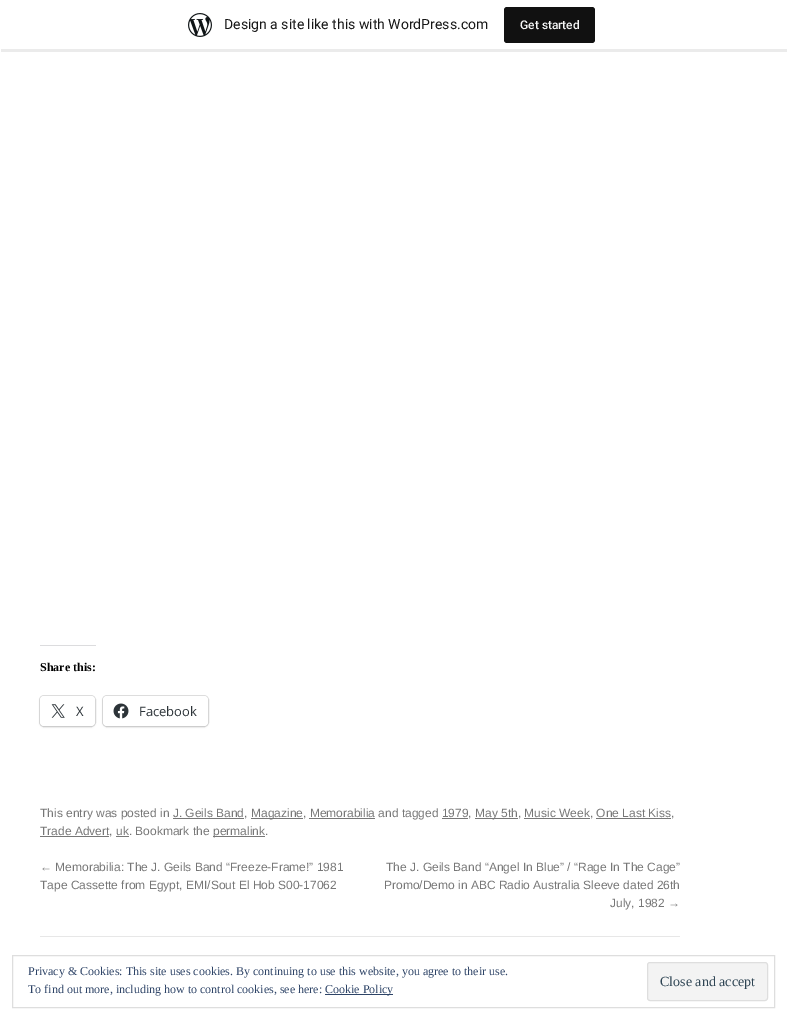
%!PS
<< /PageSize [787 1020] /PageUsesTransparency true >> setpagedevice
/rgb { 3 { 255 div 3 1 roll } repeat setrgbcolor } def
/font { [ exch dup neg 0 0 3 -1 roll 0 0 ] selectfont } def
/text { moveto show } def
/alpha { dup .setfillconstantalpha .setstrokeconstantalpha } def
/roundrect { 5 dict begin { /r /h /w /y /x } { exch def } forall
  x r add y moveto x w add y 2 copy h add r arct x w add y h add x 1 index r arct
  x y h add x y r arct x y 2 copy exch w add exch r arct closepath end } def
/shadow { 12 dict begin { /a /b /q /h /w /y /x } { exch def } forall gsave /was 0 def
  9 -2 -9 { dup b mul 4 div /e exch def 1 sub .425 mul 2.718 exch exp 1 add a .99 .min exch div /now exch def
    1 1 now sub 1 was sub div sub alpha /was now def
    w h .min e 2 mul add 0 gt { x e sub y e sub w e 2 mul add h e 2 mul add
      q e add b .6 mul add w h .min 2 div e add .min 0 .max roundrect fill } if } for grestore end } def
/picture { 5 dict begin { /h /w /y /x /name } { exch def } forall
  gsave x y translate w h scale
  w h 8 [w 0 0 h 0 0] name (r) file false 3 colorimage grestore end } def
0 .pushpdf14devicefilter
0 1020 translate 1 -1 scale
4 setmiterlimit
255 255 255 rgb
0 0 787 1020 rectfill
0.08 alpha
0 0 0 rgb
1 49 moveto 0 3 rlineto 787 0 rlineto 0 -49 rlineto -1 0 rlineto 0 46 rlineto closepath fill
1 alpha
(img_01.rgb) 188 13 24 24 picture
17 17 17 rgb
504 7 91 36 3 roundrect fill
220 220 222 rgb
40 645 56 1 rectfill
224 224 224 rgb
39.5 695.5 56 31 4.5 roundrect stroke
0 0 0 rgb
40 697 55 30 4 1 0.12 shadow
255 255 255 rgb
40 696 55 30 4 roundrect fill
(img_02.rgb) 51 704 14 14 picture
224 224 224 rgb
102.5 695.5 106 31 4.5 roundrect stroke
0 0 0 rgb
103 697 105 30 4 1 0.12 shadow
255 255 255 rgb
103 696 105 30 4 roundrect fill
(img_03.rgb) 113 703 16 16 picture
119 119 119 rgb
251 818 52 1 rectfill
475 818 43 1 rectfill
173 818 71 1 rectfill
309 818 66 1 rectfill
442 818 26 1 rectfill
524 818 66 1 rectfill
596 818 75 1 rectfill
40 836 69 1 rectfill
213 836 52 1 rectfill
116 836 13 1 rectfill
231 231 231 rgb
40 936 640 1 rectfill
222 222 222 rgb
12.5 955.5 762 52 rectstroke
46 68 103 rgb
325 994 68 1 rectfill
243 243 243 rgb
647.5 962.5 120 38 2.5 roundrect gsave fill grestore
222 222 222 rgb
stroke
/Roboto-Regular 14 font
23 23 23 rgb
(Design a site like this with WordPress.com) 224 29 text
/Roboto-Medium 12 font
246 247 247 rgb
(Get started) 520 29 text
/LiberationSerif-Bold 12 font
0 0 0 rgb
(Share this:) 40 671 text
/OpenSans-Regular 13 font
44 51 56 rgb
(X) 76 716 text
(Facebook) 139 716 text
/LiberationSans-Regular 12 font
119 119 119 rgb
(This entry was posted in J. Geils Band,) 40 817 text
(Magazine, Memorabilia and tagged 1979,) 251 817 text
(May 5th, Music Week, One Last Kiss,) 475 817 text
(Trade Advert, uk. Bookmark the) 40 835 text
(permalink.) 213 835 text
(← Memorabilia: The J. Geils Band “Freeze-Frame!” 1981) 40 871 text
(Tape Cassette from Egypt, EMI/Sout El Hob S00-17062) 40 889 text
(The J. Geils Band “Angel In Blue” / “Rage In The Cage”) 386 871 text
(Promo/Demo in ABC Radio Australia Sleeve dated 26th) 384 889 text
(July, 1982 →) 610 907 text
/LiberationSerif-Regular 12 font
46 68 103 rgb
(Privacy & Cookies: This site uses cookies. By continuing to use this website, you agree to their use.) 28 975 text
(To find out more, including how to control cookies, see here:) 28 993 text
(Cookie Policy) 325 993 text
/LiberationSerif-Regular 14 font
46 68 83 rgb
(Close and accept) 660 986 text
.poppdf14devicefilter showpage
